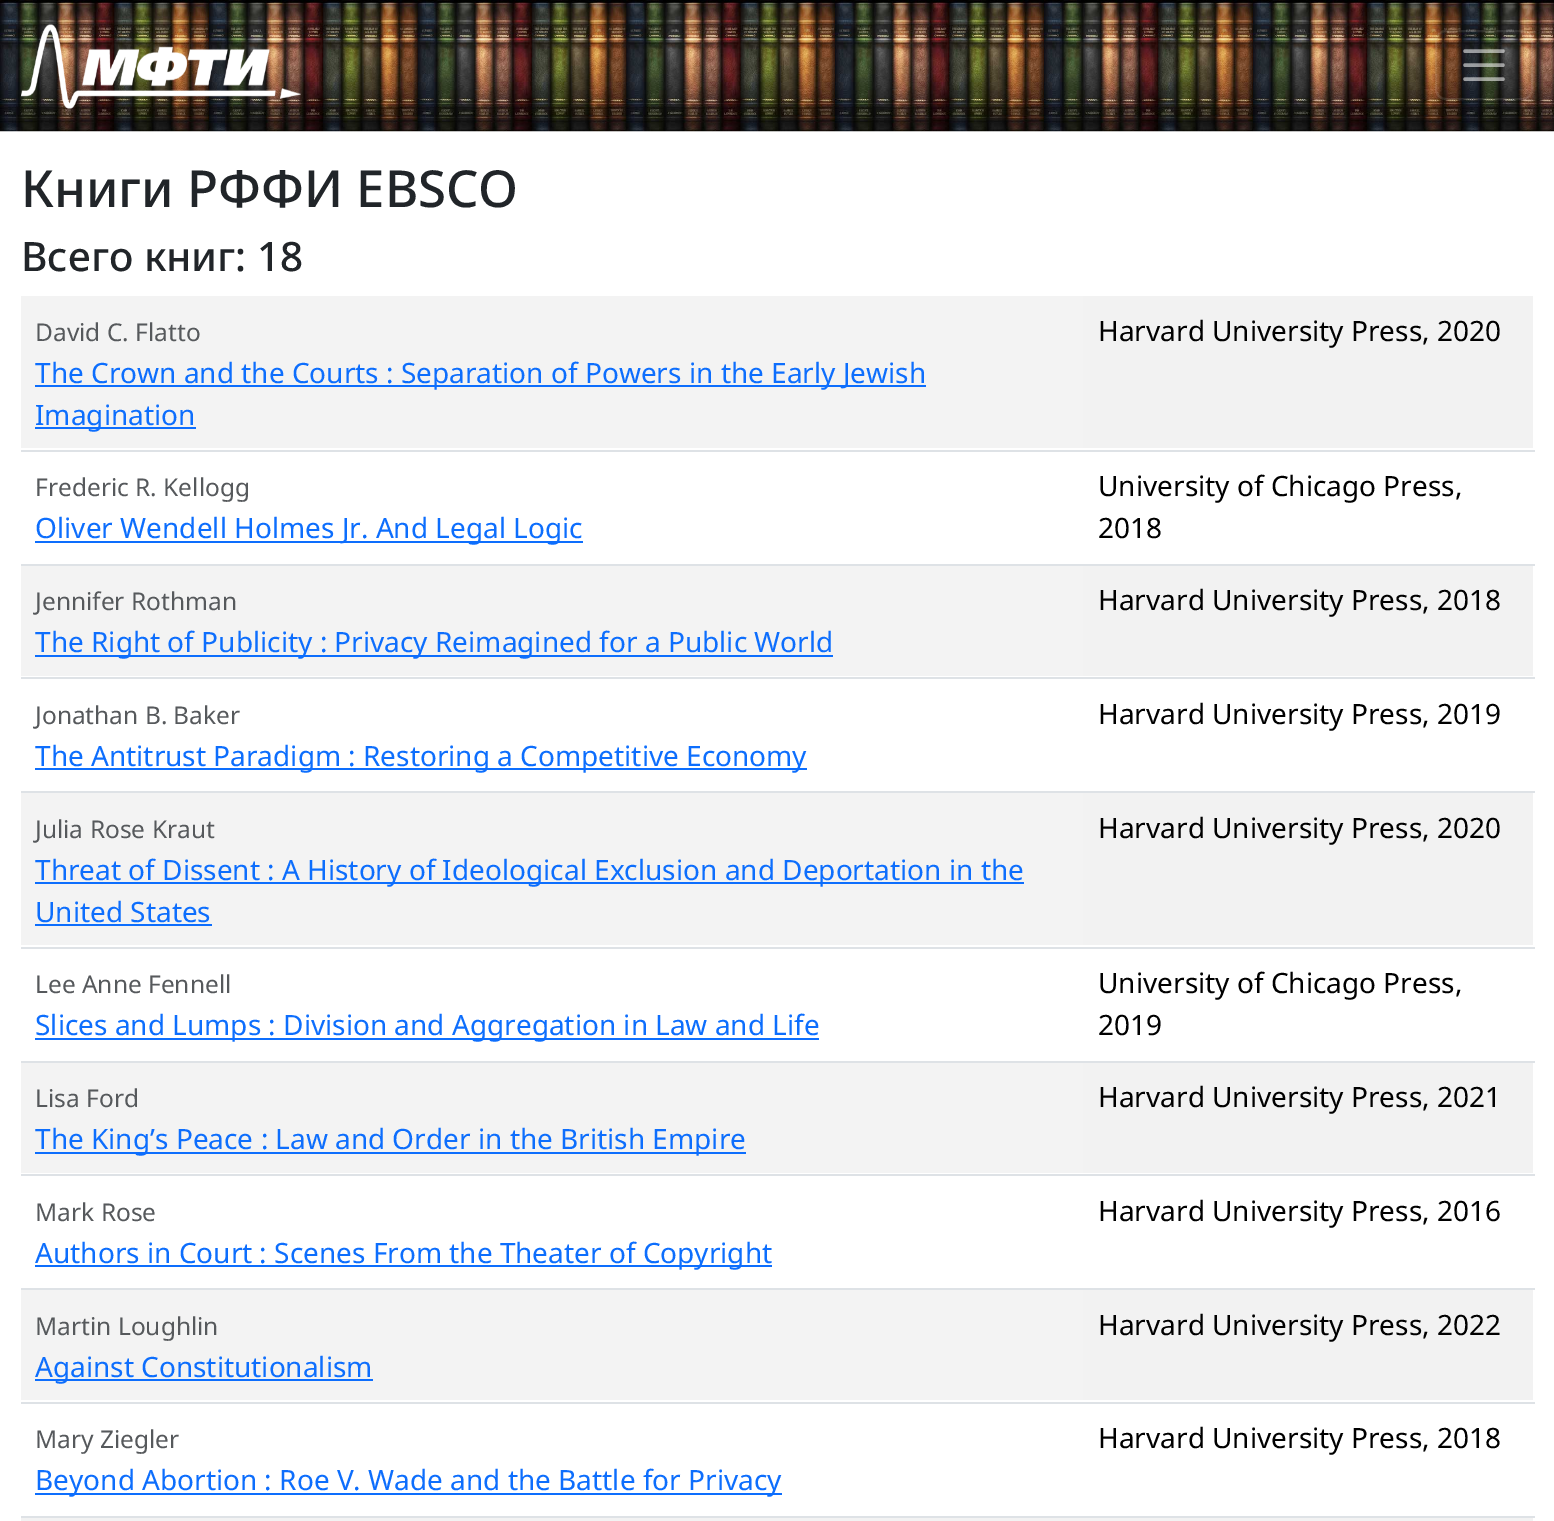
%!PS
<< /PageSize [1554 1521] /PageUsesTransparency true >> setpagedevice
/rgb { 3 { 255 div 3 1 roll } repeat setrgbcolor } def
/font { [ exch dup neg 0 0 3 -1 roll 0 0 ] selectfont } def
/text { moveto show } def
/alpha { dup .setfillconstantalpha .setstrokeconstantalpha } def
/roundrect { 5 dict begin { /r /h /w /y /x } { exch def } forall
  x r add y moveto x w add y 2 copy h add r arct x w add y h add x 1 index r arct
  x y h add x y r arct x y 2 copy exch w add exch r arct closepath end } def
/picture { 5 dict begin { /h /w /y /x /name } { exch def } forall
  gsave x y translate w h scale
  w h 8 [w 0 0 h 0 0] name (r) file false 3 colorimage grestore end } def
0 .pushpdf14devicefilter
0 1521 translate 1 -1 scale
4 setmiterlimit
255 255 255 rgb
0 0 1554 1521 rectfill
(img_01.rgb) 0 0 1554 132 picture
(img_02.rgb) 21 24 280 85 picture
0.1 alpha
2 setlinewidth
1436 31 96 68 10 roundrect stroke
0.55 alpha
3.5 setlinewidth
1 setlinecap
1465 51 moveto 38 0 rlineto 1465 65 moveto 38 0 rlineto 1465 79 moveto 38 0 rlineto stroke
1 alpha
243 243 243 rgb
21 296 1062 152 rectfill
13 110 253 rgb
35 385 891 2 rectfill
35 427 161 2 rectfill
242 242 242 rgb
1083 296 450 152 rectfill
222 226 230 rgb
21 450 1514 2 rectfill
13 110 253 rgb
35 541 548 2 rectfill
222 226 230 rgb
21 564 1514 2 rectfill
243 243 243 rgb
21 566 1062 110 rectfill
13 110 253 rgb
35 655 798 2 rectfill
242 242 242 rgb
1083 566 450 110 rectfill
222 226 230 rgb
21 677 1514 2 rectfill
13 110 253 rgb
35 768 772 2 rectfill
222 226 230 rgb
21 791 1514 2 rectfill
243 243 243 rgb
21 793 1062 152 rectfill
13 110 253 rgb
35 882 989 2 rectfill
35 924 177 2 rectfill
242 242 242 rgb
1083 793 450 152 rectfill
222 226 230 rgb
21 947 1514 2 rectfill
13 110 253 rgb
35 1038 784 2 rectfill
222 226 230 rgb
21 1061 1514 2 rectfill
243 243 243 rgb
21 1063 1062 110 rectfill
13 110 253 rgb
35 1152 711 2 rectfill
242 242 242 rgb
1083 1063 450 110 rectfill
222 226 230 rgb
21 1174 1514 2 rectfill
13 110 253 rgb
35 1265 737 2 rectfill
222 226 230 rgb
21 1288 1514 2 rectfill
243 243 243 rgb
21 1290 1062 110 rectfill
13 110 253 rgb
35 1379 338 2 rectfill
242 242 242 rgb
1083 1290 450 110 rectfill
222 226 230 rgb
21 1402 1514 2 rectfill
13 110 253 rgb
35 1493 747 2 rectfill
222 226 230 rgb
21 1516 1514 2 rectfill
242 242 242 rgb
21 1518 1512 3 rectfill
/NotoSans-Medium 51 font
33 37 41 rgb
(Книги РФФИ EBSCO) 21 207 text
/NotoSans-Medium 40.5 font
(Всего книг: 18) 21 271 text
/NotoSans-Regular 24.5 font
86 89 92 rgb
(David C. Flatto) 35 341 text
/NotoSans-Regular 28 font
13 110 253 rgb
(The Crown and the Courts : Separation of Powers in the Early Jewish) 35 383 text
(Imagination) 35 425 text
0 0 0 rgb
(Harvard University Press, 2020) 1098 341 text
/NotoSans-Regular 24.5 font
86 89 92 rgb
(Frederic R. Kellogg) 35 496 text
/NotoSans-Regular 28 font
13 110 253 rgb
(Oliver Wendell Holmes Jr. And Legal Logic) 35 538 text
0 0 0 rgb
(University of Chicago Press,) 1098 496 text
(2018) 1098 538 text
/NotoSans-Regular 24.5 font
86 89 92 rgb
(Jennifer Rothman) 35 610 text
/NotoSans-Regular 28 font
13 110 253 rgb
(The Right of Publicity : Privacy Reimagined for a Public World) 35 652 text
0 0 0 rgb
(Harvard University Press, 2018) 1098 610 text
/NotoSans-Regular 24.5 font
86 89 92 rgb
(Jonathan B. Baker) 35 724 text
/NotoSans-Regular 28 font
13 110 253 rgb
(The Antitrust Paradigm : Restoring a Competitive Economy) 35 766 text
0 0 0 rgb
(Harvard University Press, 2019) 1098 724 text
/NotoSans-Regular 24.5 font
86 89 92 rgb
(Julia Rose Kraut) 35 838 text
/NotoSans-Regular 28 font
13 110 253 rgb
(Threat of Dissent : A History of Ideological Exclusion and Deportation in the) 35 880 text
(United States) 35 922 text
0 0 0 rgb
(Harvard University Press, 2020) 1098 838 text
/NotoSans-Regular 24.5 font
86 89 92 rgb
(Lee Anne Fennell) 35 993 text
/NotoSans-Regular 28 font
13 110 253 rgb
(Slices and Lumps : Division and Aggregation in Law and Life) 35 1035 text
0 0 0 rgb
(University of Chicago Press,) 1098 993 text
(2019) 1098 1035 text
/NotoSans-Regular 24.5 font
86 89 92 rgb
(Lisa Ford) 35 1107 text
/NotoSans-Regular 28 font
13 110 253 rgb
(The King’s Peace : Law and Order in the British Empire) 35 1149 text
0 0 0 rgb
(Harvard University Press, 2021) 1098 1107 text
/NotoSans-Regular 24.5 font
86 89 92 rgb
(Mark Rose) 35 1221 text
/NotoSans-Regular 28 font
13 110 253 rgb
(Authors in Court : Scenes From the Theater of Copyright) 35 1263 text
0 0 0 rgb
(Harvard University Press, 2016) 1098 1221 text
/NotoSans-Regular 24.5 font
86 89 92 rgb
(Martin Loughlin) 35 1335 text
/NotoSans-Regular 28 font
13 110 253 rgb
(Against Constitutionalism) 35 1377 text
0 0 0 rgb
(Harvard University Press, 2022) 1098 1335 text
/NotoSans-Regular 24.5 font
86 89 92 rgb
(Mary Ziegler) 35 1448 text
/NotoSans-Regular 28 font
13 110 253 rgb
(Beyond Abortion : Roe V. Wade and the Battle for Privacy) 35 1490 text
0 0 0 rgb
(Harvard University Press, 2018) 1098 1448 text
.poppdf14devicefilter showpage
